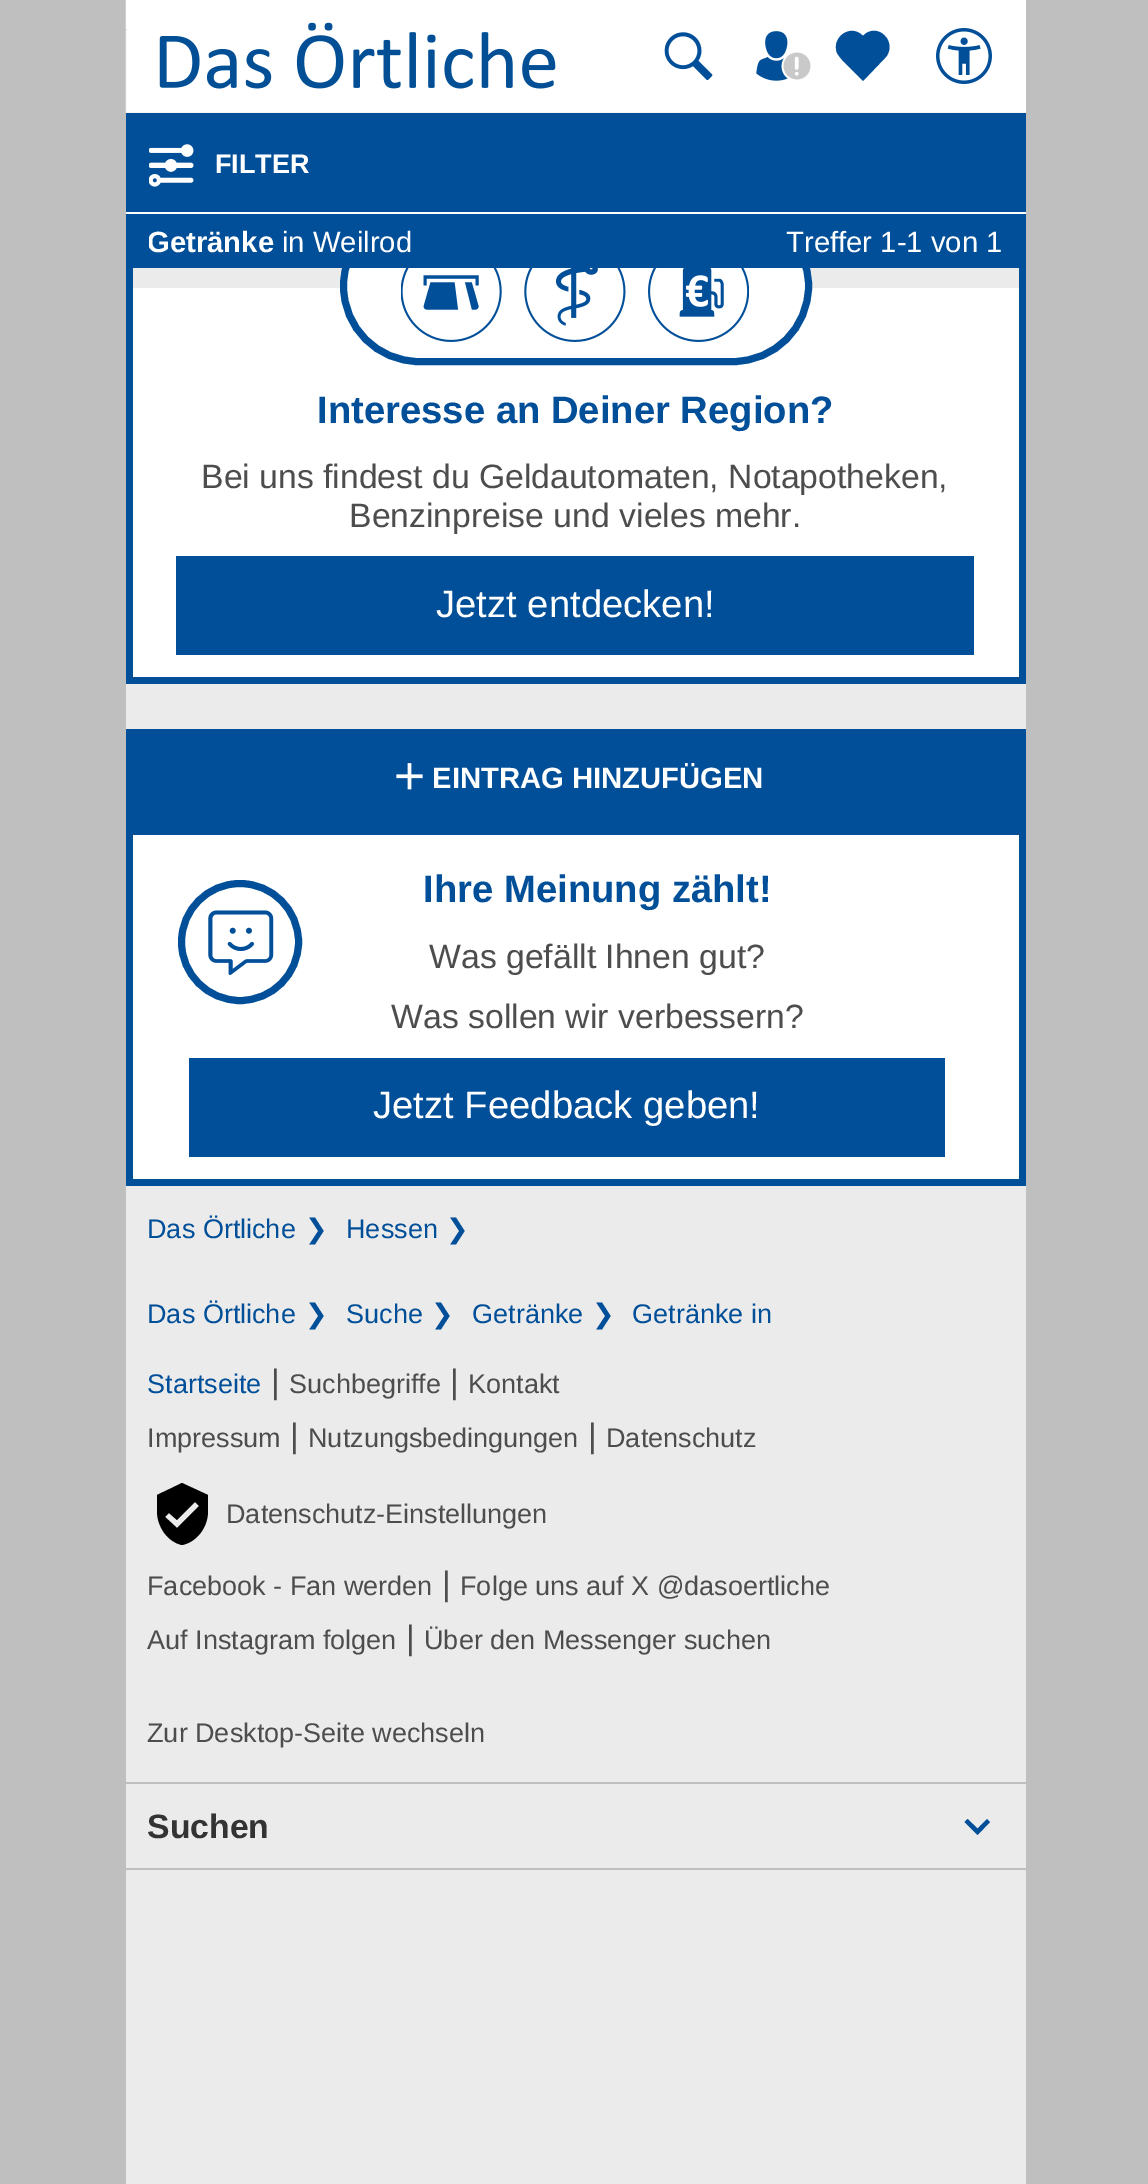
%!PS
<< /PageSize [1148 2184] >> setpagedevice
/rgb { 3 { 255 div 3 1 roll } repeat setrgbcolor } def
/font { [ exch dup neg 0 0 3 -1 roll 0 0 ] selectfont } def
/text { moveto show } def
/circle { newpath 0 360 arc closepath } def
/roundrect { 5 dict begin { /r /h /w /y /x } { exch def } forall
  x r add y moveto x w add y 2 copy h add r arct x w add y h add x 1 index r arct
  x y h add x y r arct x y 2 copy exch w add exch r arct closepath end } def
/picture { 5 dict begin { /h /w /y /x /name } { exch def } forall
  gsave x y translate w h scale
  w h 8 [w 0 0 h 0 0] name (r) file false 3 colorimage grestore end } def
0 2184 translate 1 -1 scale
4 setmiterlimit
191 191 191 rgb
0 0 1148 2184 rectfill
255 255 255 rgb
126 0 1 32 rectfill
191 191 191 rgb
126 29 1 2 rectfill
235 235 235 rgb
126 32 900 81 rectfill
(img_01.rgb) 125 0 901 113 picture
(img_02.rgb) 159 22 397 67 picture
(img_03.rgb) 664 32 49 49 picture
(img_04.rgb) 756 31 55 50 picture
2 79 153 rgb
885 36 moveto -6 -7 -16 -7 -22 0 rcurveto -12 -13 -32 1 -26 17 rcurveto 3 5 7 9 11 13 rcurveto 15 15 rlineto 22 -23 rlineto 6 -6 6 -16 0 -22 rcurveto closepath fill
(img_05.rgb) 936 28 56 56 picture
126 268 900 918 rectfill
235 235 235 rgb
133 268 886 20 rectfill
255 255 255 rgb
133 288 886 389 rectfill
343.5 210.5 465 151 75.5 roundrect gsave fill grestore
2 79 153 rgb
7 setlinewidth
stroke
126 113 900 99 rectfill
(img_06.rgb) 149 144 45 43 picture
126 214 900 54 rectfill
255 255 255 rgb
126 212 900 2 rectfill
(img_07.rgb) 401 268 101 74 picture
(img_08.rgb) 524 268 102 74 picture
(img_09.rgb) 648 268 101 74 picture
2 79 153 rgb
176 556 798 99 rectfill
235 235 235 rgb
126 684 900 45 rectfill
(img_10.rgb) 396 763 27 27 picture
255 255 255 rgb
133 835 886 344 rectfill
2 79 153 rgb
240 942 58.5 circle stroke
(img_11.rgb) 208 910 66 65 picture
189 1058 756 99 rectfill
235 235 235 rgb
126 1186 900 998 rectfill
0 0 0 rgb
182 1483 moveto -25 12 rlineto 0 16 rlineto 0 16 11 31 25 34 rcurveto 15 -3 26 -18 26 -34 rcurveto 0 -16 rlineto closepath 177 1528 moveto -12 -11 rlineto 4 -4 rlineto 8 7 rlineto 18 -18 rlineto 4 4 rlineto closepath fill
191 191 191 rgb
126 1782 900 2 rectfill
2 79 153 rgb
964.5 1822 moveto 3 -3 rlineto 10 9.5 rlineto 9.5 -9.5 rlineto 3 3 rlineto -12.5 13 rlineto closepath fill
191 191 191 rgb
126 1868 900 2 rectfill
/LiberationSans-Bold 27 font
255 255 255 rgb
(FILTER) 215 173 text
gsave
149 214 517 56 rectclip
/LiberationSans-Bold 29.25 font
(Getränke) 147 252 text
grestore
/LiberationSans-Regular 29.25 font
(in Weilrod) 282 252 text
(Treffer 1-1 von 1) 786 252 text
/LiberationSans-Bold 38.25 font
2 79 153 rgb
(Interesse an Deiner Region?) 317 423 text
/LiberationSans-Regular 33.75 font
77 77 77 rgb
(Bei uns findest du Geldautomaten, Notapotheken,) 201 488 text
(Benzinpreise und vieles mehr.) 349 527 text
/LiberationSans-Regular 38.25 font
255 255 255 rgb
(Jetzt entdecken!) 436 617 text
/LiberationSans-Bold 29.25 font
(EINTRAG HINZUFÜGEN) 432 788 text
/LiberationSans-Bold 38.25 font
2 79 153 rgb
(Ihre Meinung zählt!) 423 902 text
/LiberationSans-Regular 33.75 font
77 77 77 rgb
(Was gefällt Ihnen gut?) 429 968 text
(Was sollen wir verbessern?) 391 1028 text
/LiberationSans-Regular 38.25 font
255 255 255 rgb
(Jetzt Feedback geben!) 373 1118 text
/LiberationSans-Regular 27 font
2 79 153 rgb
(Das Örtliche) 147 1238 text
/DejaVuSans-Regular 27 font
(❯) 305 1238 text
/LiberationSans-Regular 27 font
(Hessen) 346 1238 text
/DejaVuSans-Regular 27 font
(❯) 446 1238 text
/LiberationSans-Regular 27 font
(Das Örtliche) 147 1323 text
/DejaVuSans-Regular 27 font
(❯) 305 1323 text
/LiberationSans-Regular 27 font
(Suche) 346 1323 text
/DejaVuSans-Regular 27 font
(❯) 431 1323 text
/LiberationSans-Regular 27 font
(Getränke) 472 1323 text
/DejaVuSans-Regular 27 font
(❯) 592 1323 text
/LiberationSans-Regular 27 font
(Getränke in) 632 1323 text
(Startseite) 147 1393 text
/LiberationSans-Regular 33.75 font
77 77 77 rgb
(|) 271 1393 text
/LiberationSans-Regular 27 font
(Suchbegriffe) 289 1393 text
/LiberationSans-Regular 33.75 font
(|) 450 1393 text
/LiberationSans-Regular 27 font
(Kontakt) 468 1393 text
(Impressum) 147 1447 text
/LiberationSans-Regular 33.75 font
(|) 290 1447 text
/LiberationSans-Regular 27 font
(Nutzungsbedingungen) 308 1447 text
/LiberationSans-Regular 33.75 font
(|) 588 1447 text
/LiberationSans-Regular 27 font
(Datenschutz) 606 1447 text
(Datenschutz-Einstellungen) 226 1523 text
(Facebook - Fan werden) 147 1595 text
/LiberationSans-Regular 33.75 font
(|) 442 1595 text
/LiberationSans-Regular 27 font
(Folge uns auf X @dasoertliche) 460 1595 text
(Auf Instagram folgen) 147 1649 text
/LiberationSans-Regular 33.75 font
(|) 406 1649 text
/LiberationSans-Regular 27 font
(Über den Messenger suchen) 424 1649 text
(Zur Desktop-Seite wechseln) 147 1742 text
/LiberationSans-Bold 33.75 font
51 51 51 rgb
(Suchen) 147 1838 text
showpage
